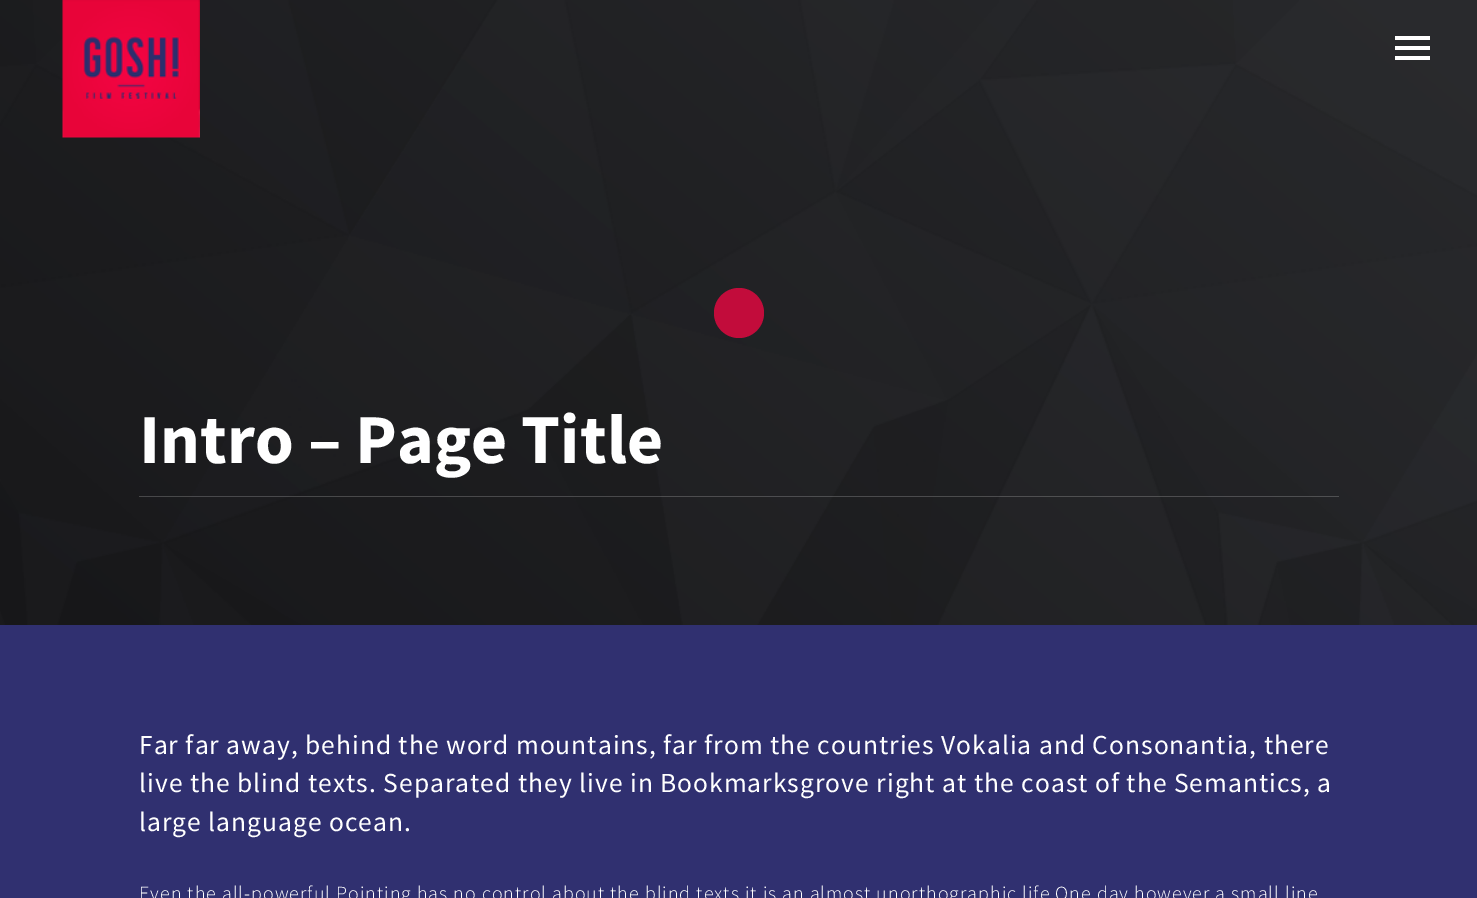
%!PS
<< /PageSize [1477 898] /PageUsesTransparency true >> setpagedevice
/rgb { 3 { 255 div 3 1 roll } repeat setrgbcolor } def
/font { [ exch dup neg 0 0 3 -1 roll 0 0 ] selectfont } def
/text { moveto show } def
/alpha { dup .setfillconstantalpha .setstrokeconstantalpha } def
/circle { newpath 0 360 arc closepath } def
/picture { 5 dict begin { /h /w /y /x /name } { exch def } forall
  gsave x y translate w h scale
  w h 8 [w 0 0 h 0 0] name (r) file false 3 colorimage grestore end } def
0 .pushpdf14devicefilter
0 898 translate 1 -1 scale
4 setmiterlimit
48 48 112 rgb
0 0 1477 898 rectfill
(img_02.rgb) 0 0 1477 625 picture
(img_01.rgb) 62 0 138 138 picture
255 255 255 rgb
1395 46 35 4 rectfill
1395 36 35 4 rectfill
1395 56 35 4 rectfill
194 12 59 rgb
739 313 25 circle fill
0.2 alpha
255 255 255 rgb
139 496 1200 1 rectfill
/SourceSansPro-Bold 70 font
1 alpha
(Intro – Page Title) 139 463 text
/SourceSansPro-Regular 27.5 font
139 754 moveto 1 0 (Far far away, behind the word mountains, far from the countries Vokalia and Consonantia, there) ashow
139 792 moveto 1 0 (live the blind texts. Separated they live in Bookmarksgrove right at the coast of the Semantics, a) ashow
139 831 moveto 1 0 (large language ocean.) ashow
/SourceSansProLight-Light 20 font
139 900 moveto 1 0 (Even the all-powerful Pointing has no control about the blind texts it is an almost unorthographic life One day however a small line) ashow
.poppdf14devicefilter showpage
